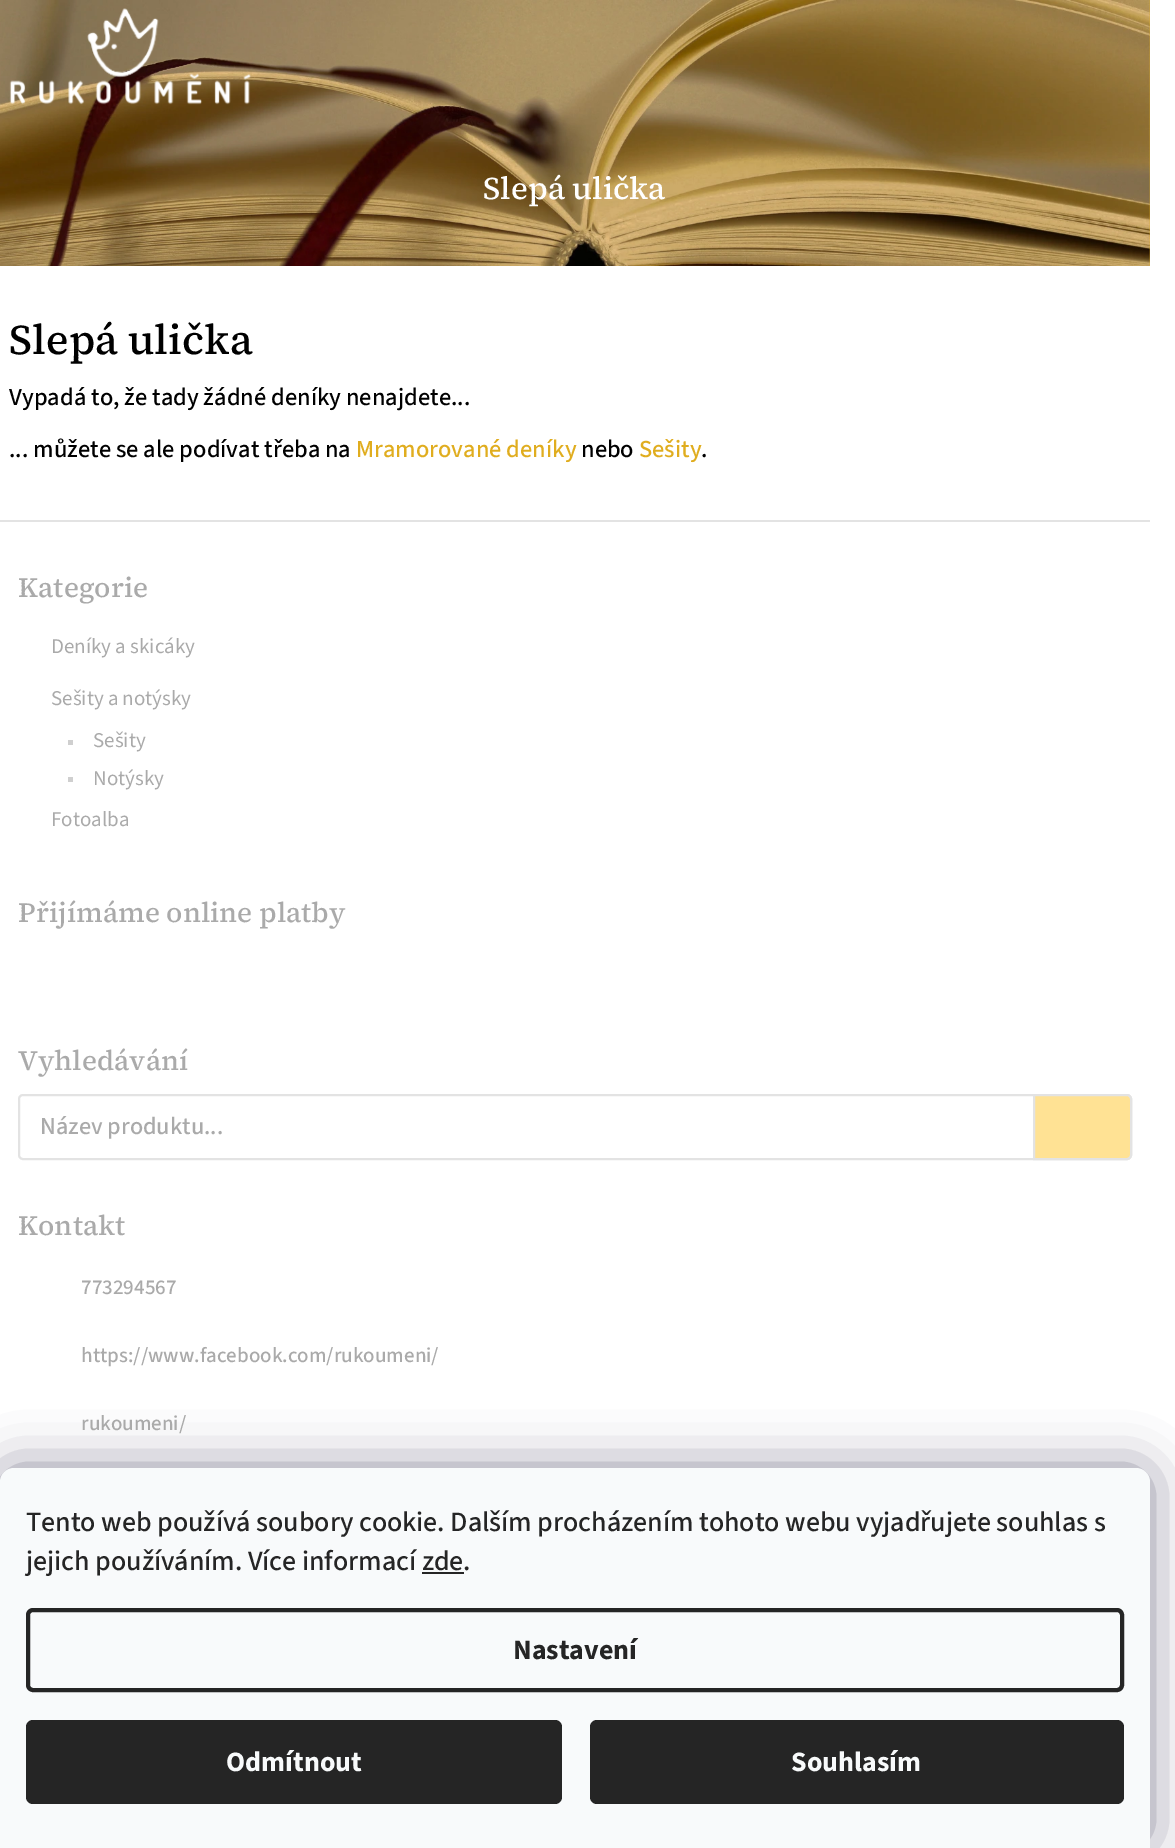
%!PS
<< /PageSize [1175 1848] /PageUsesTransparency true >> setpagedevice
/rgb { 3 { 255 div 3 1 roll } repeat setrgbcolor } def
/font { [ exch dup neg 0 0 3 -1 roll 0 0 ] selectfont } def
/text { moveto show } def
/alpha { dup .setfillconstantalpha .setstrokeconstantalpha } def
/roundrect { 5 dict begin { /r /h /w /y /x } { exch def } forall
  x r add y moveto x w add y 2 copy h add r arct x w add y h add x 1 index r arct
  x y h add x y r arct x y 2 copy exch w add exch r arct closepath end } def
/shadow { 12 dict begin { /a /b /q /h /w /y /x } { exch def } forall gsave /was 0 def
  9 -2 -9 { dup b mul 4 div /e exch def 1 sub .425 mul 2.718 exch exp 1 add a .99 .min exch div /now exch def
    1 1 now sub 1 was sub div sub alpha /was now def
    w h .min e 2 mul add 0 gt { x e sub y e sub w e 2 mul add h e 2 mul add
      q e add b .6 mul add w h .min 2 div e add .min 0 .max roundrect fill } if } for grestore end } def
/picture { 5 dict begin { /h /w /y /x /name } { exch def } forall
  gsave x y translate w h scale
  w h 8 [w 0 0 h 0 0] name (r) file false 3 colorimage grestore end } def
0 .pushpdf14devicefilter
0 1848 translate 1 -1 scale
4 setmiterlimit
255 255 255 rgb
0 0 1175 1848 rectfill
(img_01.rgb) 0 0 1150 266 picture
(img_02.rgb) 9 8 242 97 picture
227 227 227 rgb
0 520 1150 2 rectfill
207 207 207 rgb
68 740 5 5 rectfill
68 777 5 5 rectfill
227 227 227 rgb
2 setlinewidth
19 1095 1112 64 4 roundrect stroke
255 226 148 rgb
1034 1095 moveto 93 0 rlineto 2 0 4 2 4 4 rcurveto 0 56 rlineto 0 2 -2 4 -4 4 rcurveto -93 0 rlineto closepath gsave fill grestore
227 227 227 rgb
stroke
27 25 57 rgb
0 1468 1150 380 14 26 0.5 shadow
248 250 251 rgb
14 1468 moveto 1122 0 rlineto 7.5 0 14 6.5 14 14 rcurveto 0 366 rlineto -1150 0 rlineto 0 -366 rlineto 0 -7.5 6.5 -14 14 -14 rcurveto closepath fill
37 37 37 rgb
422 1572 42 2 rectfill
4 setlinewidth
28 1610 1094 80 5 roundrect stroke
26 1720 536 84 7 roundrect fill
590 1720 534 84 7 roundrect fill
/SourceSerif4-Medium 31.5 font
255 255 255 rgb
(Slepá ulička) 483 199 text
/SourceSerif4-Medium 42 font
0 0 0 rgb
(Slepá ulička) 9 354 text
/SourceSans3-Medium 24.5 font
(Vypadá to, že tady žádné deníky nenajdete...) 9 405 text
(... můžete se ale podívat třeba na) 9 457 text
224 173 31 rgb
(Mramorované deníky) 356 457 text
0 0 0 rgb
(nebo) 581 457 text
224 173 31 rgb
(Sešity) 639 457 text
0 0 0 rgb
(.) 701 457 text
/SourceSerif4-Medium 28 font
170 170 170 rgb
(Kategorie) 18 597 text
/SourceSans3-Regular 21 font
(Deníky a skicáky) 51 653 text
(Sešity a notýsky) 51 705 text
(Sešity) 93 747 text
(Notýsky) 93 785 text
(Fotoalba) 51 826 text
/SourceSerif4-Medium 28 font
(Přijímáme online platby) 18 922 text
(Vyhledávání) 18 1070 text
/SourceSans3-Medium 24.25 font
(Název produktu...) 40 1134 text
/SourceSerif4-Medium 28 font
(Kontakt) 18 1235 text
/SourceSans3-Medium 21 font
(773294567) 81 1294 text
(https://www.facebook.com/rukoumeni/) 81 1362 text
(rukoumeni/) 81 1430 text
/SourceSans3-Medium 28 font
37 37 37 rgb
(Tento web používá soubory cookie. Dalším procházením tohoto webu vyjadřujete souhlas s) 26 1531 text
(jejich používáním. Více informací zde.) 26 1570 text
/SourceSans3-Bold 28 font
(Nastavení) 513 1659 text
248 250 251 rgb
(Odmítnout) 226 1771 text
(Souhlasím) 791 1771 text
.poppdf14devicefilter showpage
